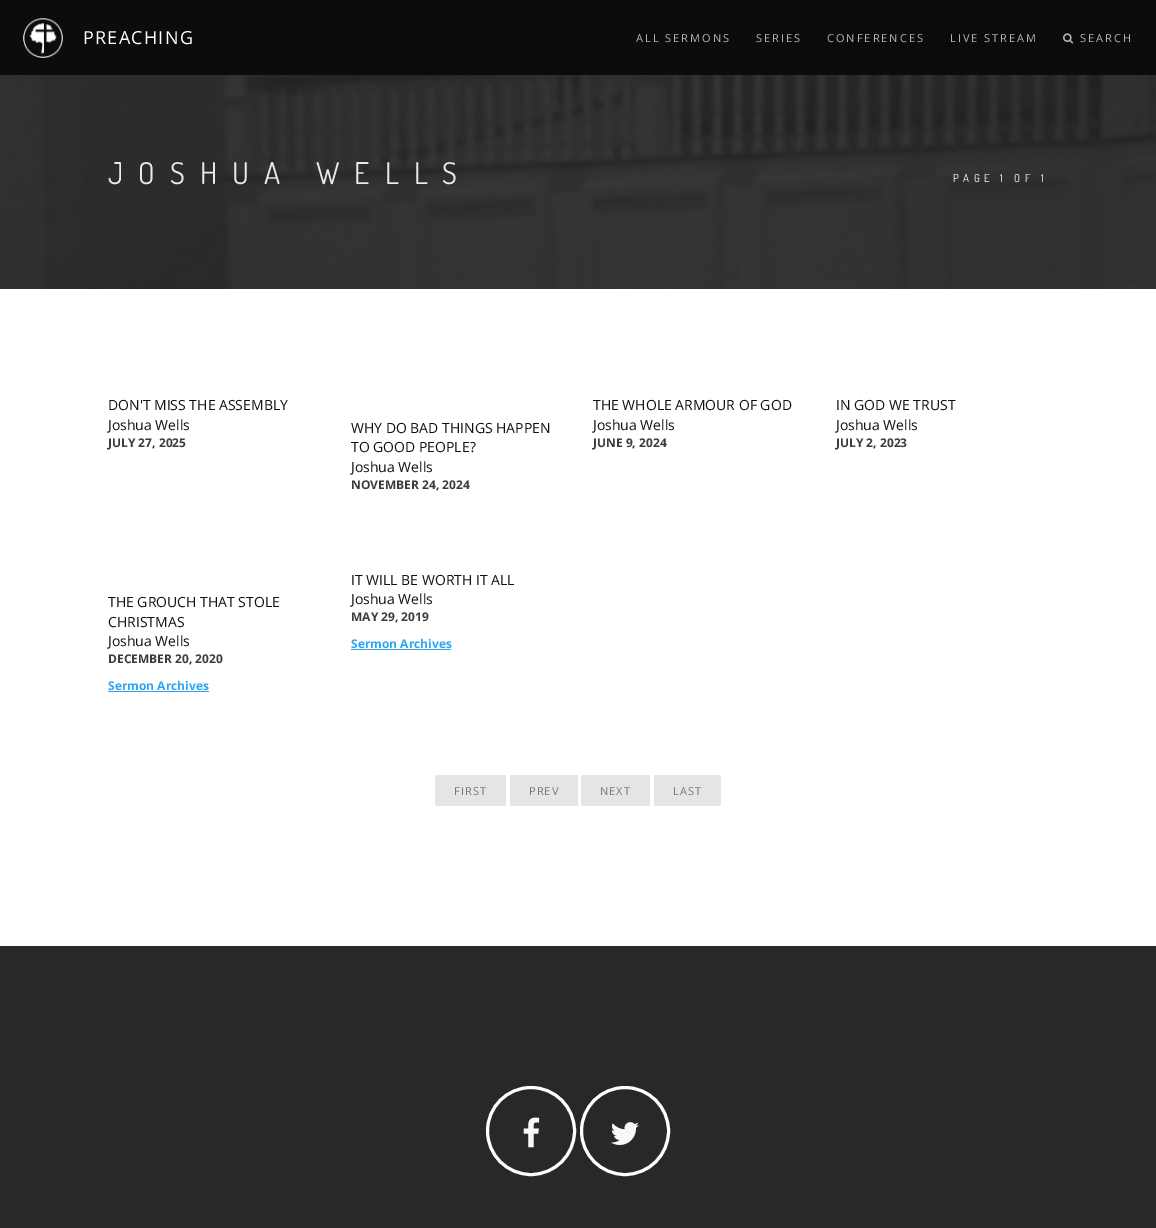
%!PS
<< /PageSize [1156 1228] /PageUsesTransparency true >> setpagedevice
/rgb { 3 { 255 div 3 1 roll } repeat setrgbcolor } def
/font { [ exch dup neg 0 0 3 -1 roll 0 0 ] selectfont } def
/text { moveto show } def
/alpha { dup .setfillconstantalpha .setstrokeconstantalpha } def
/circle { newpath 0 360 arc closepath } def
/roundrect { 5 dict begin { /r /h /w /y /x } { exch def } forall
  x r add y moveto x w add y 2 copy h add r arct x w add y h add x 1 index r arct
  x y h add x y r arct x y 2 copy exch w add exch r arct closepath end } def
/picture { 5 dict begin { /h /w /y /x /name } { exch def } forall
  gsave x y translate w h scale
  w h 8 [w 0 0 h 0 0] name (r) file false 3 colorimage grestore end } def
0 .pushpdf14devicefilter
0 1228 translate 1 -1 scale
4 setmiterlimit
255 255 255 rgb
0 0 1156 1228 rectfill
(img_03.rgb) 0 0 1156 289 picture
0.95 alpha
10 10 10 rgb
0 0 1156 75 rectfill
1 alpha
(img_01.rgb) 23 18 40 40 picture
(img_02.rgb) 1063 33 11 11 picture
46 163 242 rgb
108 691 101 1 rectfill
351 649 100 1 rectfill
229 229 229 rgb
435 775 71 31 2 roundrect fill
510 775 68 31 2 roundrect fill
581 775 69 31 2 roundrect fill
654 775 67 31 2 roundrect fill
40 40 40 rgb
0 946 1156 282 rectfill
255 255 255 rgb
3 setlinewidth
531 1131 43.5 circle stroke
(img_04.rgb) 523 1117 17 31 picture
625 1131 43.5 circle stroke
(img_05.rgb) 611 1122 28 23 picture
/OpenSans-Regular 18 font
83 44 moveto 1.25 0 (PREACHING) ashow
/OpenSans-Regular 11 font
182 182 182 rgb
636 42 moveto 2 0 (ALL SERMONS) ashow
756 42 moveto 2 0 (SERIES) ashow
827 42 moveto 2 0 (CONFERENCES) ashow
950 42 moveto 2 0 (LIVE STREAM) ashow
1080 42 moveto 2 0 (SEARCH) ashow
/Dosis-Regular 30 font
234 234 234 rgb
108 184 moveto 15 0 (JOSHUA WELLS) ashow
/Dosis-Regular 11 font
255 255 255 rgb
953 182 moveto 4.4 0 (PAGE 1 OF 1) ashow
/OpenSans-Regular 14 font
17 17 17 rgb
(DON'T MISS THE ASSEMBLY) 108 410 text
(Joshua Wells) 108 430 text
/OpenSans-Bold 12 font
61 61 61 rgb
(JULY 27, 2025) 108 447 text
/OpenSans-Regular 14 font
17 17 17 rgb
(WHY DO BAD THINGS HAPPEN) 351 433 text
(TO GOOD PEOPLE?) 351 452 text
(Joshua Wells) 351 472 text
/OpenSans-Bold 12 font
61 61 61 rgb
(NOVEMBER 24, 2024) 351 489 text
/OpenSans-Regular 14 font
17 17 17 rgb
(THE WHOLE ARMOUR OF GOD) 593 410 text
(Joshua Wells) 593 430 text
/OpenSans-Bold 12 font
61 61 61 rgb
(JUNE 9, 2024) 593 447 text
/OpenSans-Regular 14 font
17 17 17 rgb
(IN GOD WE TRUST) 836 410 text
(Joshua Wells) 836 430 text
/OpenSans-Bold 12 font
61 61 61 rgb
(JULY 2, 2023) 836 447 text
/OpenSans-Regular 14 font
17 17 17 rgb
(THE GROUCH THAT STOLE) 108 607 text
(CHRISTMAS) 108 627 text
(Joshua Wells) 108 646 text
/OpenSans-Bold 12 font
61 61 61 rgb
(DECEMBER 20, 2020) 108 663 text
46 163 242 rgb
(Sermon Archives) 108 690 text
/OpenSans-Regular 14 font
17 17 17 rgb
(IT WILL BE WORTH IT ALL) 351 585 text
(Joshua Wells) 351 604 text
/OpenSans-Bold 12 font
61 61 61 rgb
(MAY 29, 2019) 351 621 text
46 163 242 rgb
(Sermon Archives) 351 648 text
/OpenSans-Regular 11 font
119 119 119 rgb
454 795 moveto 1 0 (FIRST) ashow
529 795 moveto 1 0 (PREV) ashow
600 795 moveto 1 0 (NEXT) ashow
673 795 moveto 1 0 (LAST) ashow
.poppdf14devicefilter showpage
